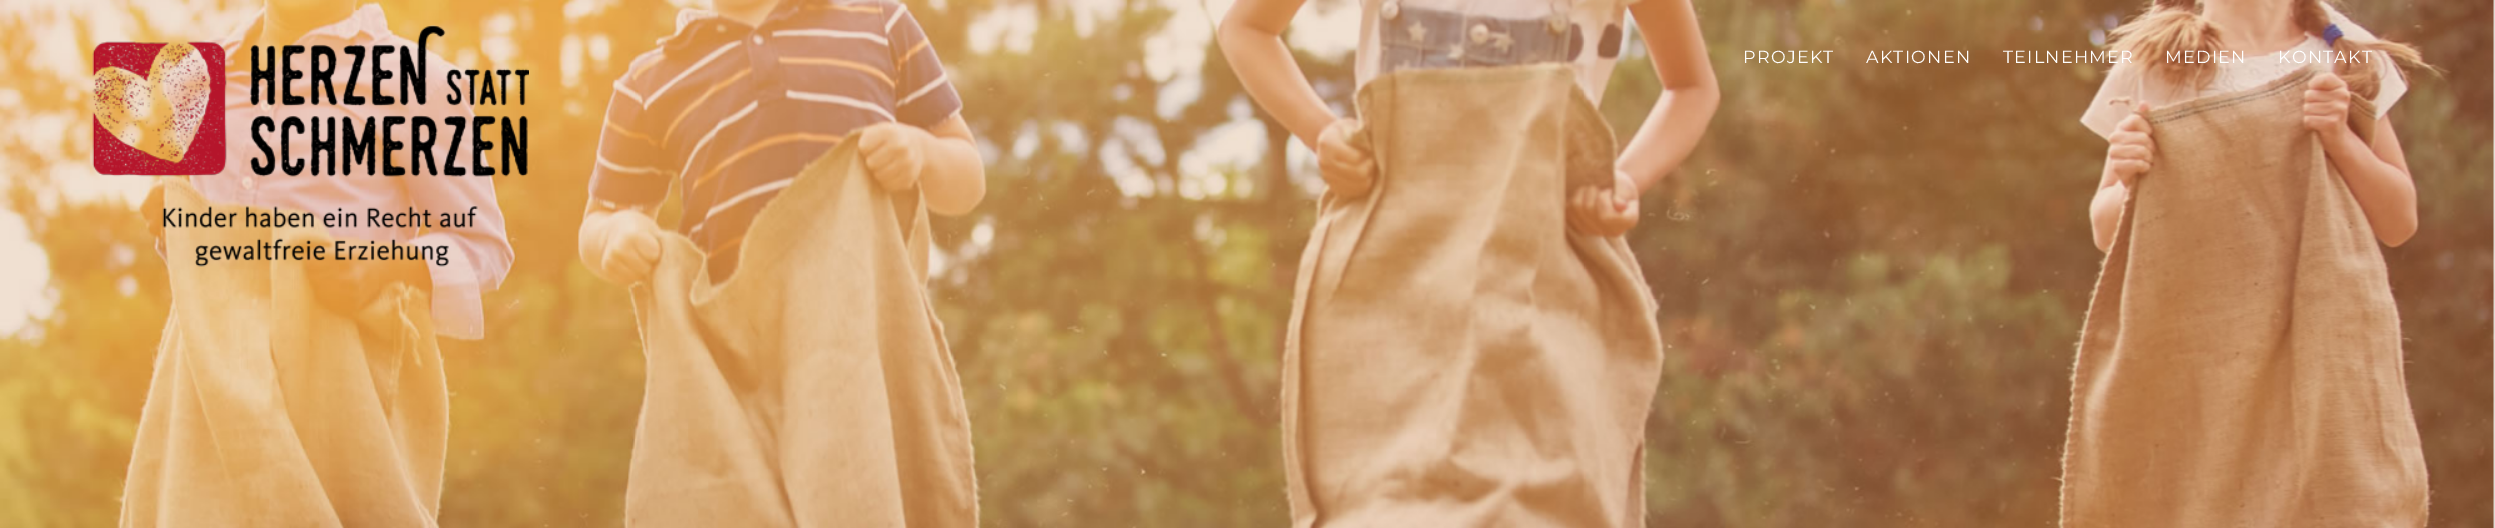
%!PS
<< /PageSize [2495 528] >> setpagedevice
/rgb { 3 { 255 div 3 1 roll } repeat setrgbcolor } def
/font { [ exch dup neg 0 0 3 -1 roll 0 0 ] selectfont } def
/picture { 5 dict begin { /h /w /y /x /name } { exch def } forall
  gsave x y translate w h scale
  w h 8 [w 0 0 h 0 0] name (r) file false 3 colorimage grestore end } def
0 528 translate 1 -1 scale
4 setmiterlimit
255 255 255 rgb
0 0 2495 528 rectfill
(img_01.rgb) 0 0 2495 528 picture
(img_02.rgb) 92 25 437 242 picture
/Montserrat-Thin 17.5 font
1743 63 moveto 1.25 0 (PROJEKT) ashow
1866 63 moveto 1.25 0 (AKTIONEN) ashow
2003 63 moveto 1.25 0 (TEILNEHMER) ashow
2165 63 moveto 1.25 0 (MEDIEN) ashow
2278 63 moveto 1.25 0 (KONTAKT) ashow
showpage
